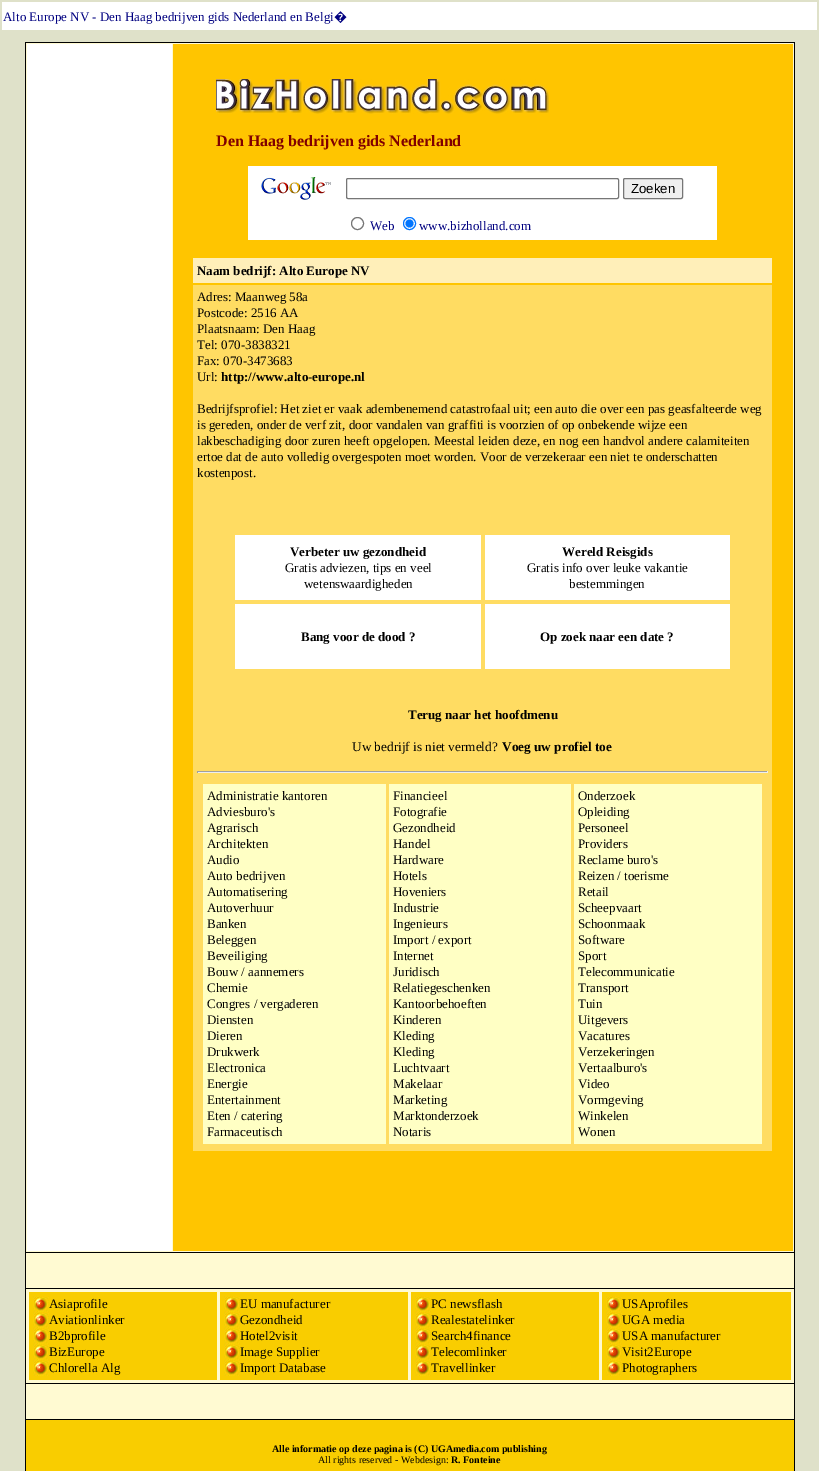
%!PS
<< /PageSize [819 1471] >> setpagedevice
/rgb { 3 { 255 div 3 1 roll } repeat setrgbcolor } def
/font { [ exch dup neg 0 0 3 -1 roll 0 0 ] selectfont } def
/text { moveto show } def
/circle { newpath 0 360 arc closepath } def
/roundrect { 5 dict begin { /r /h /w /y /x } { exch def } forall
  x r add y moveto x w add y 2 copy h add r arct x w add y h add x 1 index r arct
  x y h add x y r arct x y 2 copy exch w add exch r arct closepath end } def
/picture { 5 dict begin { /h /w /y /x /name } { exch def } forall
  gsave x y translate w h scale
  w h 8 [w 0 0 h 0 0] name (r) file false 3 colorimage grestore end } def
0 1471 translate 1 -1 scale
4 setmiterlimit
223 225 201 rgb
0 0 819 1471 rectfill
255 255 255 rgb
2 2 815 28 rectfill
0 0 0 rgb
25 42 770 1429 rectfill
255 250 210 rgb
26 43 768 1209 rectfill
255 255 255 rgb
27 44 145 1207 rectfill
255 197 0 rgb
173 44 620 1207 rectfill
(img_01.rgb) 216 79 333 35 picture
255 255 255 rgb
248 166 469 74 rectfill
(img_02.rgb) 261 177 70 23 picture
118 118 118 rgb
346.5 178.5 272 20 1.5 roundrect stroke
239 239 239 rgb
623.5 178.5 59 20 1.5 roundrect gsave fill grestore
118 118 118 rgb
stroke
357.5 223.5 6 circle stroke
0 117 255 rgb
409.5 223.5 6 circle stroke
409.5 223.5 4 circle fill
255 239 185 rgb
193 258 579 25 rectfill
255 220 98 rgb
193 285 579 866 rectfill
255 255 255 rgb
235 535 246 65 rectfill
485 535 245 65 rectfill
235 604 246 65 rectfill
485 604 245 65 rectfill
159 159 159 rgb
197 771 571 1 rectfill
238 238 238 rgb
767 771 1 2 rectfill
197 772 571 1 rectfill
159 159 159 rgb
197 771 1 2 rectfill
255 255 196 rgb
203 784 183 360 rectfill
389 784 182 360 rectfill
574 784 188 360 rectfill
255 250 210 rgb
26 1253 768 35 rectfill
26 1289 768 94 rectfill
249 205 0 rgb
29 1292 188 88 rectfill
(img_03.rgb) 33 1296 16 16 picture
(img_03.rgb) 33 1312 16 16 picture
(img_03.rgb) 33 1328 16 16 picture
(img_03.rgb) 33 1344 16 16 picture
(img_03.rgb) 33 1360 16 16 picture
220 1292 188 88 rectfill
(img_03.rgb) 224 1296 16 16 picture
(img_03.rgb) 224 1312 16 16 picture
(img_03.rgb) 224 1328 16 16 picture
(img_03.rgb) 224 1344 16 16 picture
(img_03.rgb) 224 1360 16 16 picture
411 1292 188 88 rectfill
(img_03.rgb) 415 1296 16 16 picture
(img_03.rgb) 415 1312 16 16 picture
(img_03.rgb) 415 1328 16 16 picture
(img_03.rgb) 415 1344 16 16 picture
(img_03.rgb) 415 1360 16 16 picture
602 1292 189 88 rectfill
(img_03.rgb) 606 1296 16 16 picture
(img_03.rgb) 606 1312 16 16 picture
(img_03.rgb) 606 1328 16 16 picture
(img_03.rgb) 606 1344 16 16 picture
(img_03.rgb) 606 1360 16 16 picture
255 250 210 rgb
26 1384 768 35 rectfill
249 205 0 rgb
26 1420 768 51 rectfill
/LiberationSerif-Regular 13 font
0 0 128 rgb
(Alto Europe NV - Den Haag bedrijven gids Nederland en Belgi) 3 21 text
/NotoSans-Regular 13 font
(�) 334 21 text
/LiberationSerif-Bold 16 font
128 0 0 rgb
(Den Haag bedrijven gids Nederland) 216 146 text
/LiberationSans-Regular 13.25 font
0 0 0 rgb
(Zoeken) 631 193 text
/LiberationSerif-Regular 13 font
0 0 128 rgb
(Web) 370 230 text
(www.bizholland.com) 419 230 text
/LiberationSerif-Bold 13 font
0 0 0 rgb
(Naam bedrijf: Alto Europe NV) 197 275 text
/LiberationSerif-Regular 13 font
(Adres: Maanweg 58a) 197 301 text
(Postcode: 2516 AA) 197 317 text
(Plaatsnaam: Den Haag) 197 333 text
(Tel: 070-3838321) 197 349 text
(Fax: 070-3473683) 197 365 text
(Url:) 197 381 text
/LiberationSerif-Bold 13 font
(http://www.alto-europe.nl) 221 381 text
/LiberationSerif-Regular 13 font
(Bedrijfsprofiel: Het ziet er vaak adembenemend catastrofaal uit; een auto die over een pas geasfalteerde weg) 197 413 text
(is gereden, onder de verf zit, door vandalen van graffiti is voorzien of op onbekende wijze een) 197 429 text
(lakbeschadiging door zuren heeft opgelopen. Meestal leiden deze, en nog een handvol andere calamiteiten) 197 445 text
(ertoe dat de auto volledig overgespoten moet worden. Voor de verzekeraar een niet te onderschatten) 197 461 text
(kostenpost.) 197 477 text
/LiberationSerif-Bold 13 font
(Verbeter uw gezondheid) 290 556 text
/LiberationSerif-Regular 13 font
(Gratis adviezen, tips en veel) 285 572 text
(wetenswaardigheden) 304 588 text
/LiberationSerif-Bold 13 font
(Wereld Reisgids) 562 556 text
/LiberationSerif-Regular 13 font
(Gratis info over leuke vakantie) 527 572 text
(bestemmingen) 569 588 text
/LiberationSerif-Bold 13 font
(Bang voor de dood ?) 301 641 text
(Op zoek naar een date ?) 540 641 text
(Terug naar het hoofdmenu) 408 719 text
/LiberationSerif-Regular 13.25 font
(Uw bedrijf is niet vermeld?) 352 751 text
/LiberationSerif-Bold 13.25 font
(Voeg uw profiel toe) 502 751 text
/LiberationSerif-Regular 13 font
(Administratie kantoren) 207 800 text
(Adviesburo's) 207 816 text
(Agrarisch) 207 832 text
(Architekten) 207 848 text
(Audio) 207 864 text
(Auto bedrijven) 207 880 text
(Automatisering) 207 896 text
(Autoverhuur) 207 912 text
(Banken) 207 928 text
(Beleggen) 207 944 text
(Beveiliging) 207 960 text
(Bouw / aannemers) 207 976 text
(Chemie) 207 992 text
(Congres / vergaderen) 207 1008 text
(Diensten) 207 1024 text
(Dieren) 207 1040 text
(Drukwerk) 207 1056 text
(Electronica) 207 1072 text
(Energie) 207 1088 text
(Entertainment) 207 1104 text
(Eten / catering) 207 1120 text
(Farmaceutisch) 207 1136 text
(Financieel) 393 800 text
(Fotografie) 393 816 text
(Gezondheid) 393 832 text
(Handel) 393 848 text
(Hardware) 393 864 text
(Hotels) 393 880 text
(Hoveniers) 393 896 text
(Industrie) 393 912 text
(Ingenieurs) 393 928 text
(Import / export) 393 944 text
(Internet) 393 960 text
(Juridisch) 393 976 text
(Relatiegeschenken) 393 992 text
(Kantoorbehoeften) 393 1008 text
(Kinderen) 393 1024 text
(Kleding) 393 1040 text
(Kleding) 393 1056 text
(Luchtvaart) 393 1072 text
(Makelaar) 393 1088 text
(Marketing) 393 1104 text
(Marktonderzoek) 393 1120 text
(Notaris) 393 1136 text
(Onderzoek) 578 800 text
(Opleiding) 578 816 text
(Personeel) 578 832 text
(Providers) 578 848 text
(Reclame buro's) 578 864 text
(Reizen / toerisme) 578 880 text
(Retail) 578 896 text
(Scheepvaart) 578 912 text
(Schoonmaak) 578 928 text
(Software) 578 944 text
(Sport) 578 960 text
(Telecommunicatie) 578 976 text
(Transport) 578 992 text
(Tuin) 578 1008 text
(Uitgevers) 578 1024 text
(Vacatures) 578 1040 text
(Verzekeringen) 578 1056 text
(Vertaalburo's) 578 1072 text
(Video) 578 1088 text
(Vormgeving) 578 1104 text
(Winkelen) 578 1120 text
(Wonen) 578 1136 text
(Asiaprofile) 49 1308 text
(Aviationlinker) 49 1324 text
(B2bprofile) 49 1340 text
(BizEurope) 49 1356 text
(Chlorella Alg) 49 1372 text
(EU manufacturer) 240 1308 text
(Gezondheid) 240 1324 text
(Hotel2visit) 240 1340 text
(Image Supplier) 240 1356 text
(Import Database) 240 1372 text
(PC newsflash) 431 1308 text
(Realestatelinker) 431 1324 text
(Search4finance) 431 1340 text
(Telecomlinker) 431 1356 text
(Travellinker) 431 1372 text
(USAprofiles) 622 1308 text
(UGA media) 622 1324 text
(USA manufacturer) 622 1340 text
(Visit2Europe) 622 1356 text
(Photographers) 622 1372 text
/LiberationSerif-Bold 10 font
(Alle informatie op deze pagina is \(C\) UGAmedia.com publishing) 272 1452 text
/LiberationSerif-Regular 10 font
(All rights reserved - Webdesign:) 318 1463 text
/LiberationSerif-Bold 10 font
(R. Fonteine) 451 1463 text
showpage
